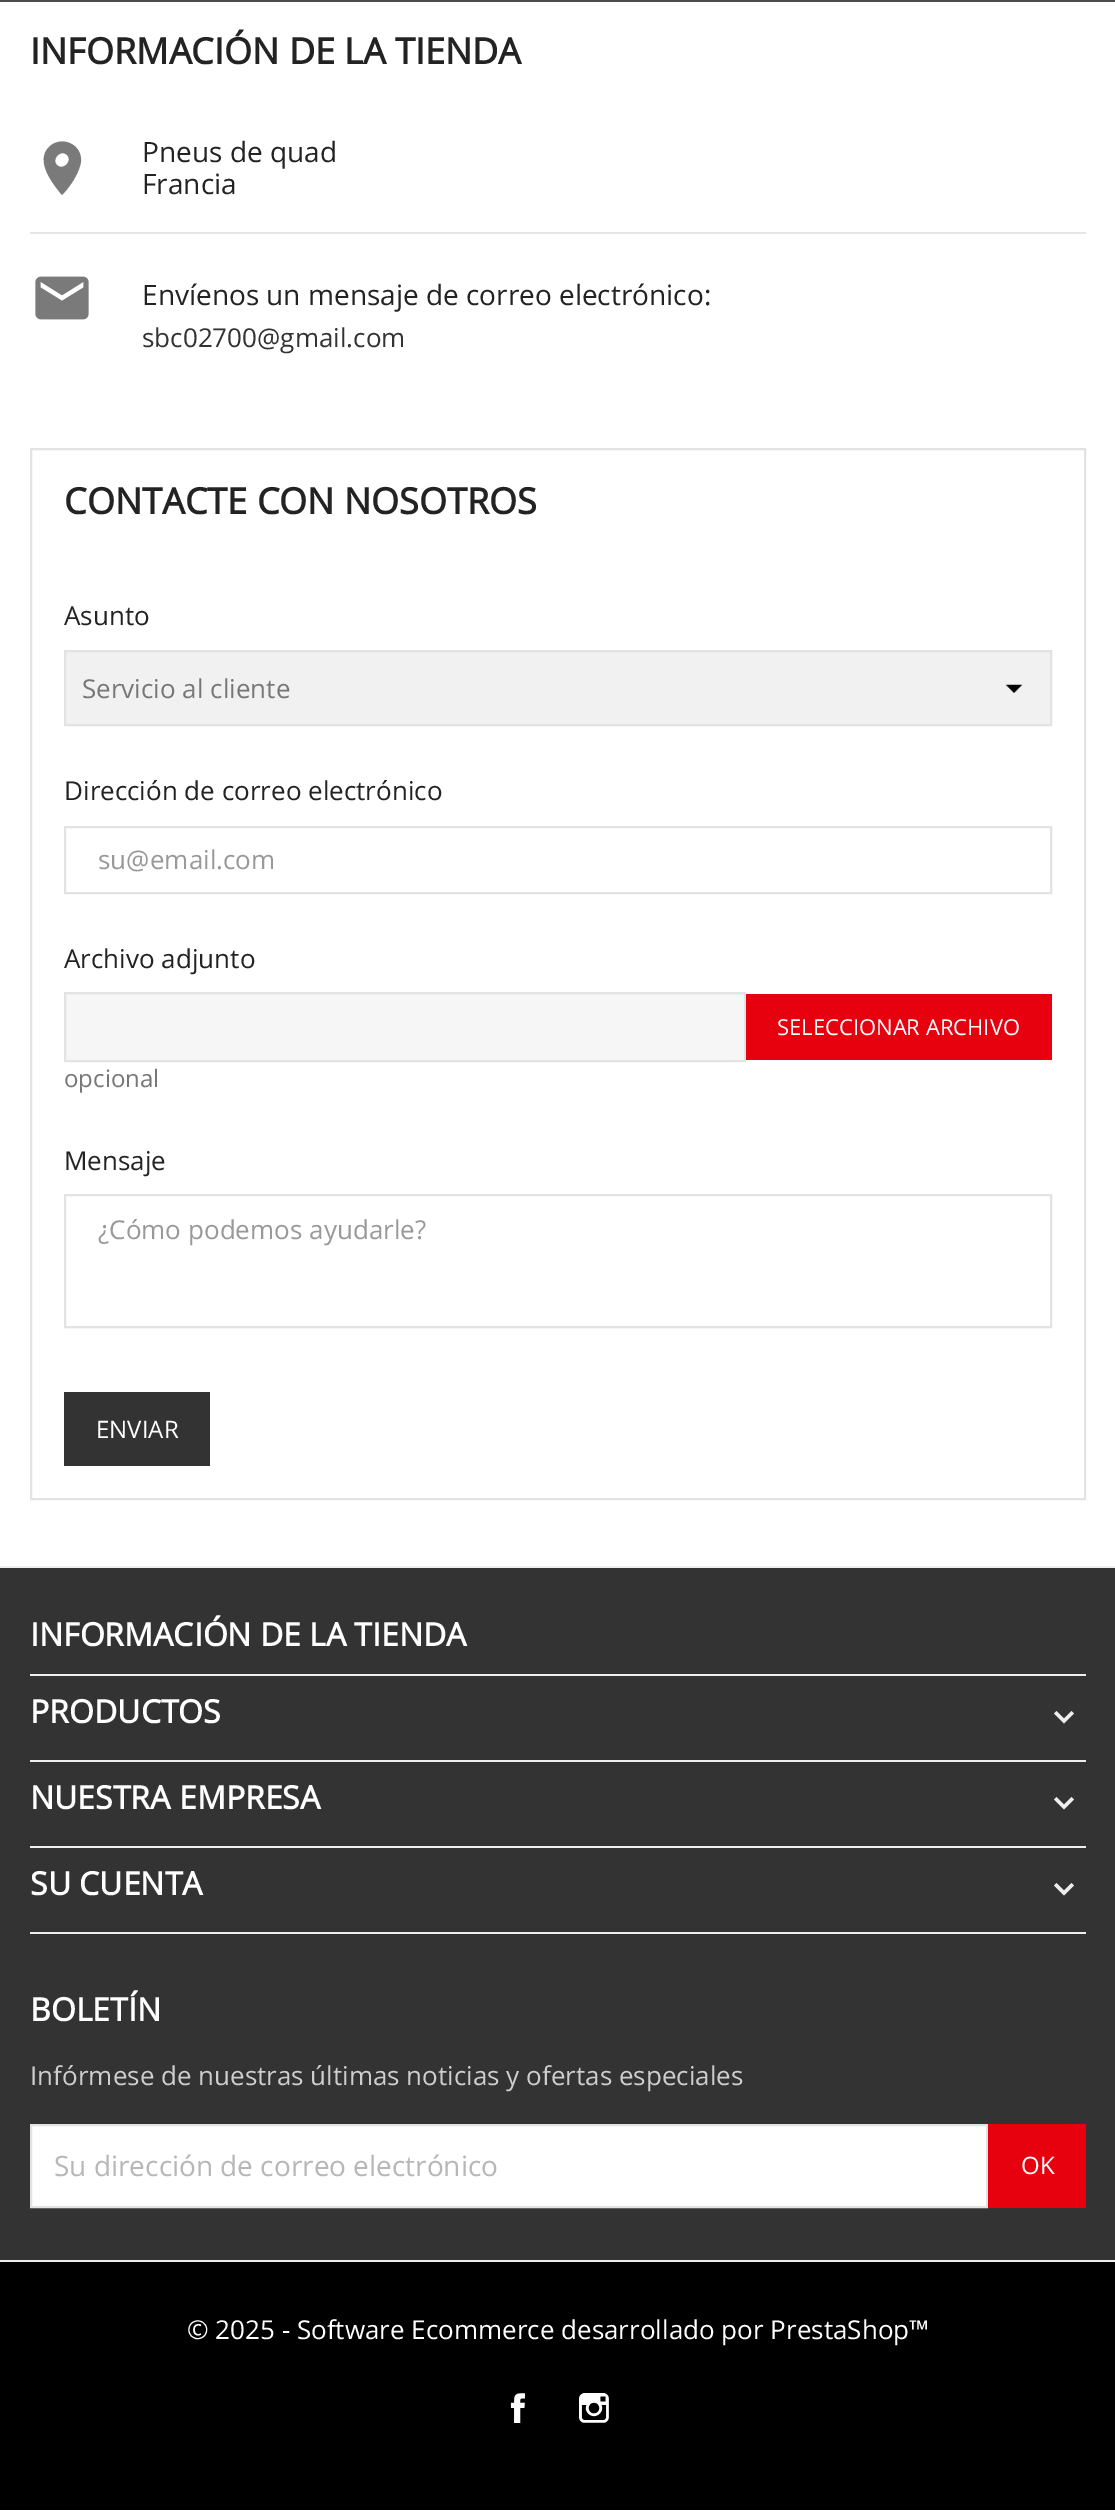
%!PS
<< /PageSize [1115 2512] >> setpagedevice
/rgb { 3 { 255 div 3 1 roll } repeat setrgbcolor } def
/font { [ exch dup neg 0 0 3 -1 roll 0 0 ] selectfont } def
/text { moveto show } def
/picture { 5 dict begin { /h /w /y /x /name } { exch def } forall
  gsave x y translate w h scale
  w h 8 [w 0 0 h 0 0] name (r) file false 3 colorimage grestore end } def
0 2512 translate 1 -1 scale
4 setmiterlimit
255 255 255 rgb
0 0 1115 2512 rectfill
79 75 76 rgb
0 0 1115 2 rectfill
122 122 122 rgb
57 165 moveto 6 6 16 -4 10 -10 rcurveto -6 -6 -16 4 -10 10 rcurveto closepath 49 147 moveto 12 -12 33 -3 32 14 rcurveto -1 11 -11 26 -19 34 rcurveto -10 -12 -27 -34 -13 -48 rcurveto closepath fill
230 230 230 rgb
30 232 1056 2 rectfill
(img_01.rgb) 35 276 54 44 picture
227 227 227 rgb
2 setlinewidth
31 449 1054 1050 rectstroke
241 241 241 rgb
66 652 984 72 rectfill
(img_02.rgb) 1005 684 18 9 picture
227 227 227 rgb
65 651 986 74 rectstroke
65 827 986 66 rectstroke
246 246 246 rgb
65 993 moveto 680 0 rlineto 0 68 rlineto -680 0 rlineto closepath gsave fill grestore
227 227 227 rgb
stroke
231 0 14 rgb
746 994 306 66 rectfill
227 227 227 rgb
65 1195 986 132 rectstroke
51 51 51 rgb
64 1392 146 74 rectfill
0 1568 1115 692 rectfill
238 238 238 rgb
0 1566 1115 2 rectfill
30 1674 1056 2 rectfill
30 1760 1056 2 rectfill
1056.5 1711 moveto 7.5 7.5 rlineto 7.5 -7.5 rlineto 2.5 2.5 rlineto -10 10 rlineto -10 -10 rlineto closepath fill
30 1846 1056 2 rectfill
1056.5 1797 moveto 7.5 7.5 rlineto 7.5 -7.5 rlineto 2.5 2.5 rlineto -10 10 rlineto -10 -10 rlineto closepath fill
30 1932 1056 2 rectfill
1056.5 1883 moveto 7.5 7.5 rlineto 7.5 -7.5 rlineto 2.5 2.5 rlineto -10 10 rlineto -10 -10 rlineto closepath fill
255 255 255 rgb
31 2125 moveto 956 0 rlineto 0 82 rlineto -956 0 rlineto closepath gsave fill grestore
227 227 227 rgb
stroke
231 0 14 rgb
988 2124 98 84 rectfill
0 0 0 rgb
0 2262 1115 248 rectfill
238 238 238 rgb
0 2260 1115 2 rectfill
(img_03.rgb) 510 2393 15 30 picture
(img_04.rgb) 579 2393 30 30 picture
/OpenSans-Bold 36 font
35 35 35 rgb
(INFORMACIÓN DE LA TIENDA) 30 64 text
/OpenSans-Regular 28 font
(Pneus de quad) 142 162 text
(Francia) 142 194 text
(Envíenos un mensaje de correo electrónico:) 142 305 text
/OpenSans-Regular 26 font
51 51 51 rgb
(sbc02700@gmail.com) 142 347 text
/OpenSans-Bold 36 font
35 35 35 rgb
(CONTACTE CON NOSOTROS) 64 514 text
/OpenSans-Regular 26 font
(Asunto) 64 625 text
119 119 119 rgb
(Servicio al cliente) 82 698 text
35 35 35 rgb
(Dirección de correo electrónico) 64 800 text
153 153 153 rgb
(su@email.com) 98 869 text
35 35 35 rgb
(Archivo adjunto) 64 968 text
/OpenSans-Regular 22 font
255 255 255 rgb
(SELECCIONAR ARCHIVO) 777 1035 text
/OpenSans-Regular 24 font
119 119 119 rgb
(opcional) 64 1087 text
/OpenSans-Regular 26 font
35 35 35 rgb
(Mensaje) 64 1170 text
153 153 153 rgb
(¿Cómo podemos ayudarle?) 98 1239 text
/OpenSans-Regular 24 font
255 255 255 rgb
(ENVIAR) 96 1438 text
/OpenSans-Bold 32 font
(INFORMACIÓN DE LA TIENDA) 30 1646 text
(PRODUCTOS) 30 1723 text
(NUESTRA EMPRESA) 30 1809 text
(SU CUENTA) 30 1895 text
(BOLETÍN) 30 2021 text
/OpenSans-Regular 26 font
206 206 206 rgb
(Infórmese de nuestras últimas noticias y ofertas especiales) 30 2085 text
/OpenSans-Regular 28 font
183 183 183 rgb
(Su dirección de correo electrónico) 54 2176 text
/OpenSans-Regular 24 font
255 255 255 rgb
(OK) 1021 2174 text
/OpenSans-Regular 26 font
(© 2025 - Software Ecommerce desarrollado por PrestaShop™) 187 2339 text
showpage
